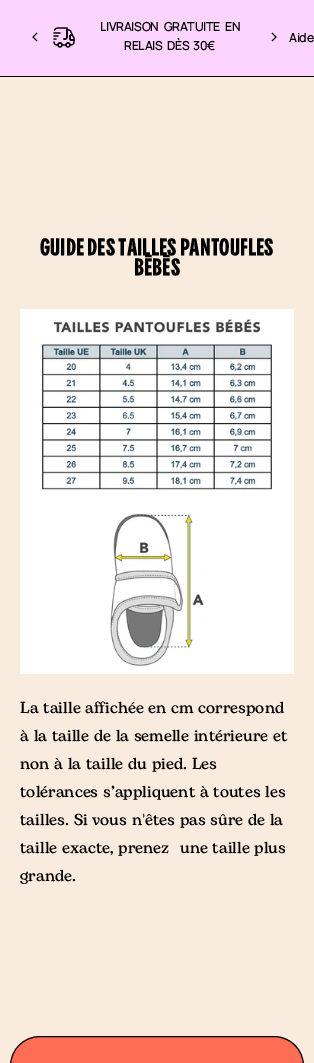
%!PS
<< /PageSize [314 1063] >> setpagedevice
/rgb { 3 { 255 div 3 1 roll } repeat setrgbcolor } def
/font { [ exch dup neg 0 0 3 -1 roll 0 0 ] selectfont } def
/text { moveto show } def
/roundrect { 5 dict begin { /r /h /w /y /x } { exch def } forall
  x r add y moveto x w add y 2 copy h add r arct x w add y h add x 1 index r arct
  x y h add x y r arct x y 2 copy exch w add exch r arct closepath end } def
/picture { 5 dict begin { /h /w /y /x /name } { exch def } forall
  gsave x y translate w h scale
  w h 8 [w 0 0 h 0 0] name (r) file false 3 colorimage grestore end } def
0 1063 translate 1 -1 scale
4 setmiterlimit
249 235 222 rgb
0 0 314 1063 rectfill
253 212 255 rgb
0 0 314 76 rectfill
0 0 0 rgb
0 76 314 1 rectfill
37 33 moveto -4 4 rlineto 4 4 rlineto stroke
(img_01.rgb) 53 27 22 21 picture
272 33 moveto 4 4 rlineto -4 4 rlineto stroke
(img_02.rgb) 20 309 274 365 picture
255 109 85 rgb
10.5 1036.5 293 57 29.5 roundrect gsave fill grestore
0 0 0 rgb
stroke
/Manrope-Bold 12 font
100 31 moveto 3 0 32 (LIVRAISON GRATUITE EN) widthshow
124 50 moveto 2 0 32 (RELAIS DÈS 30€) widthshow
289 42 moveto 1 0 32 (Aide) widthshow
/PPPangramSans-ExtraBold 24 font
(GUIDE DES TAILLES PANTOUFLES) 40 253 text
(BÉBÉS) 134 273 text
/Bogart-Medium 16 font
(La taille affichée en cm correspond) 20 713 text
(à la taille de la semelle intérieure et) 20 741 text
(non à la taille du pied. Les) 20 769 text
(tolérances s’appliquent à toutes les) 20 797 text
(tailles. Si vous n'êtes pas sûre de la) 20 825 text
(taille exacte, prenez) 20 853 text
(une taille plus) 180 853 text
(grande.) 20 881 text
showpage
